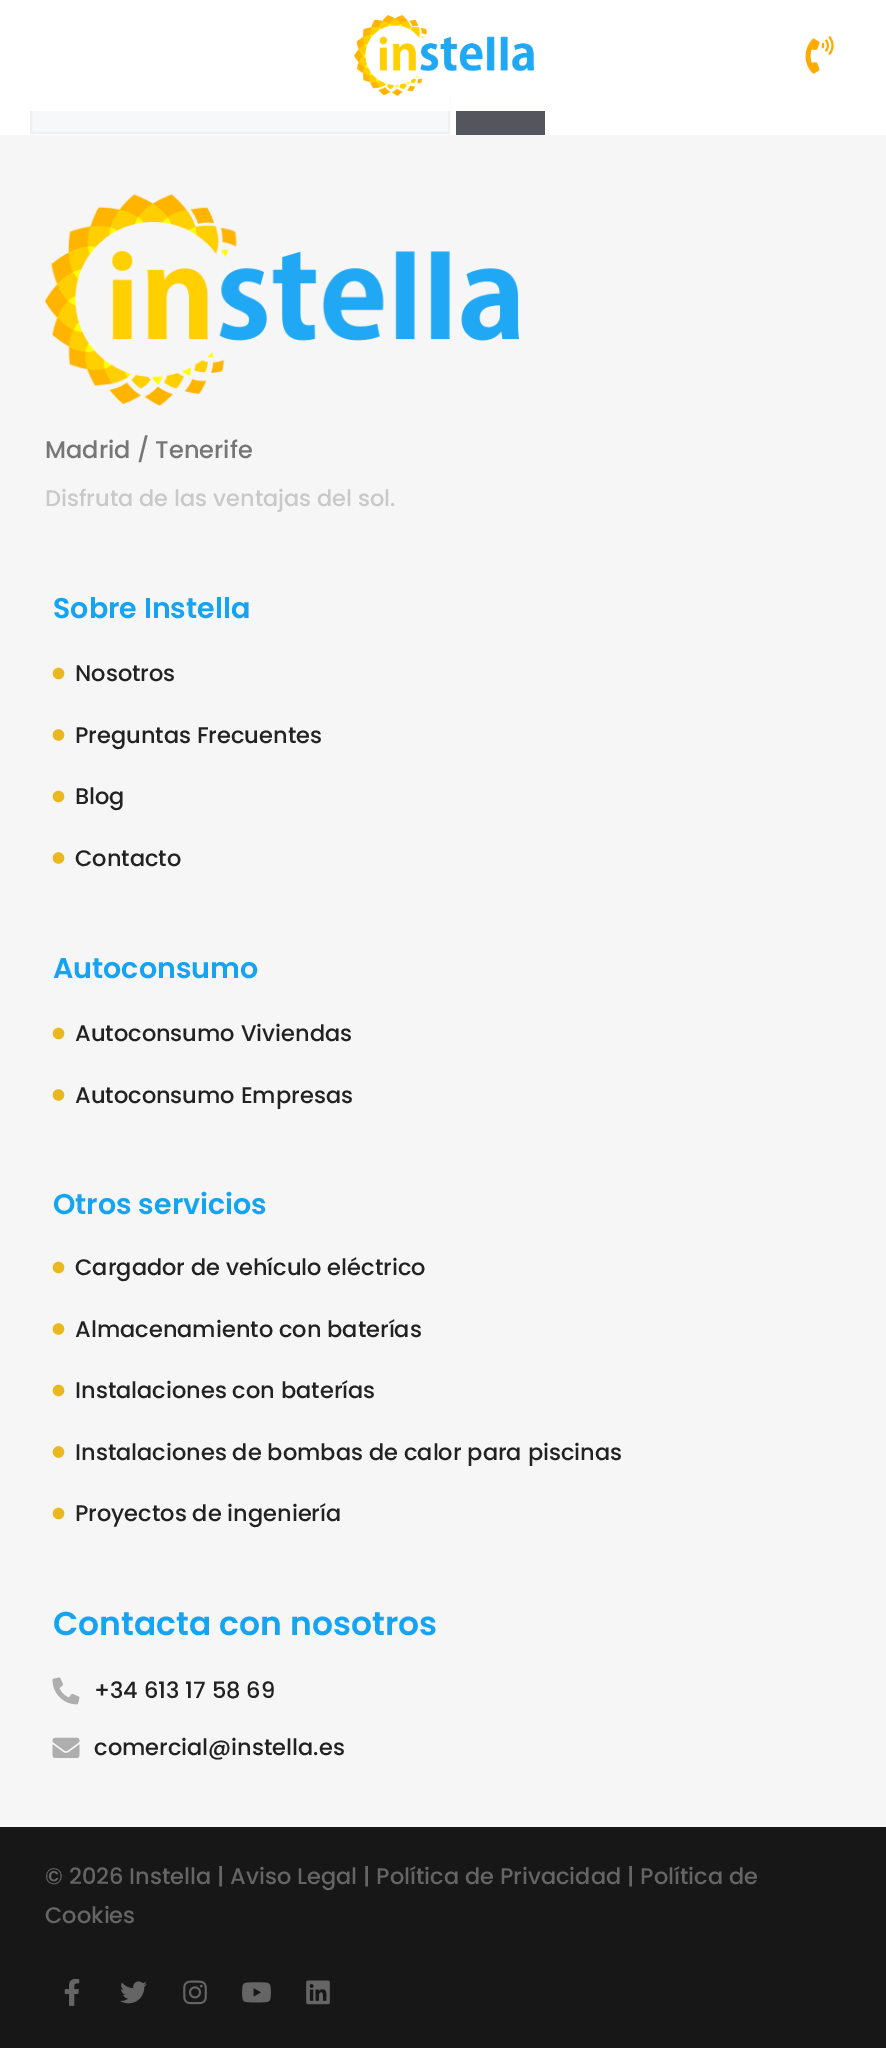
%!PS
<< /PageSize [886 2048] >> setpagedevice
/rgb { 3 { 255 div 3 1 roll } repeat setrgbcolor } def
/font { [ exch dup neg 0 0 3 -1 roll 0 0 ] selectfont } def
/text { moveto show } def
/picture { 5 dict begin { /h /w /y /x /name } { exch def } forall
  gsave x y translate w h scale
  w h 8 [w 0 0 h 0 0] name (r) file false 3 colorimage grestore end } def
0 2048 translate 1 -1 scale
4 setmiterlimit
255 255 255 rgb
0 0 886 2048 rectfill
247 248 249 rgb
32 111 416 21 rectfill
240 240 240 rgb
2 setlinewidth
31 63 418 70 rectstroke
255 255 255 rgb
30 62 420 49 rectfill
(img_01.rgb) 354 15 180 81 picture
(img_02.rgb) 805 36 29 38 picture
85 85 94 rgb
456 111 89 24 rectfill
246 246 246 rgb
0 135 886 1692 rectfill
(img_03.rgb) 45 194 474 212 picture
(img_04.rgb) 52 667 13 13 picture
(img_05.rgb) 52 729 13 12 picture
(img_04.rgb) 52 790 13 13 picture
(img_05.rgb) 52 852 13 12 picture
(img_04.rgb) 52 1027 13 13 picture
(img_05.rgb) 52 1089 13 12 picture
(img_04.rgb) 52 1261 13 13 picture
(img_05.rgb) 52 1323 13 12 picture
(img_04.rgb) 52 1384 13 13 picture
(img_05.rgb) 52 1446 13 12 picture
(img_04.rgb) 52 1507 13 13 picture
(img_06.rgb) 52 1677 28 28 picture
(img_07.rgb) 52 1737 28 21 picture
23 23 23 rgb
0 1827 886 221 rectfill
(img_08.rgb) 64 1978 16 28 picture
(img_09.rgb) 120 1981 27 23 picture
(img_10.rgb) 183 1980 24 25 picture
(img_11.rgb) 242 1982 29 21 picture
(img_12.rgb) 306 1980 24 25 picture
/Poppins-Medium 24 font
118 118 118 rgb
(Madrid / Tenerife) 45 458 text
/Poppins-Medium 22.5 font
201 201 201 rgb
(Disfruta de las ventajas del sol.) 45 506 text
/Poppins-SemiBold 28.5 font
20 164 243 rgb
(Sobre Instella) 53 618 text
/Poppins-Medium 22.5 font
34 34 34 rgb
(Nosotros) 75 681 text
(Preguntas Frecuentes) 75 743 text
(Blog) 75 804 text
(Contacto) 75 866 text
/Poppins-SemiBold 28.5 font
20 164 243 rgb
(Autoconsumo) 53 978 text
/Poppins-Medium 22.5 font
34 34 34 rgb
(Autoconsumo Viviendas) 75 1041 text
(Autoconsumo Empresas) 75 1103 text
/Poppins-SemiBold 28.5 font
20 164 243 rgb
(Otros servicios) 53 1214 text
/Poppins-Medium 22.5 font
34 34 34 rgb
(Cargador de vehículo eléctrico) 75 1275 text
(Almacenamiento con baterías) 75 1337 text
(Instalaciones con baterías) 75 1398 text
(Instalaciones de bombas de calor para piscinas) 75 1460 text
(Proyectos de ingeniería) 75 1521 text
/Poppins-SemiBold 33 font
20 164 243 rgb
(Contacta con nosotros) 53 1635 text
/Poppins-Medium 22.5 font
34 34 34 rgb
(+34 613 17 58 69) 94 1698 text
(comercial@instella.es) 94 1755 text
101 101 101 rgb
(© 2026 Instella | Aviso Legal | Política de Privacidad | Política de) 45 1884 text
(Cookies) 45 1923 text
showpage
